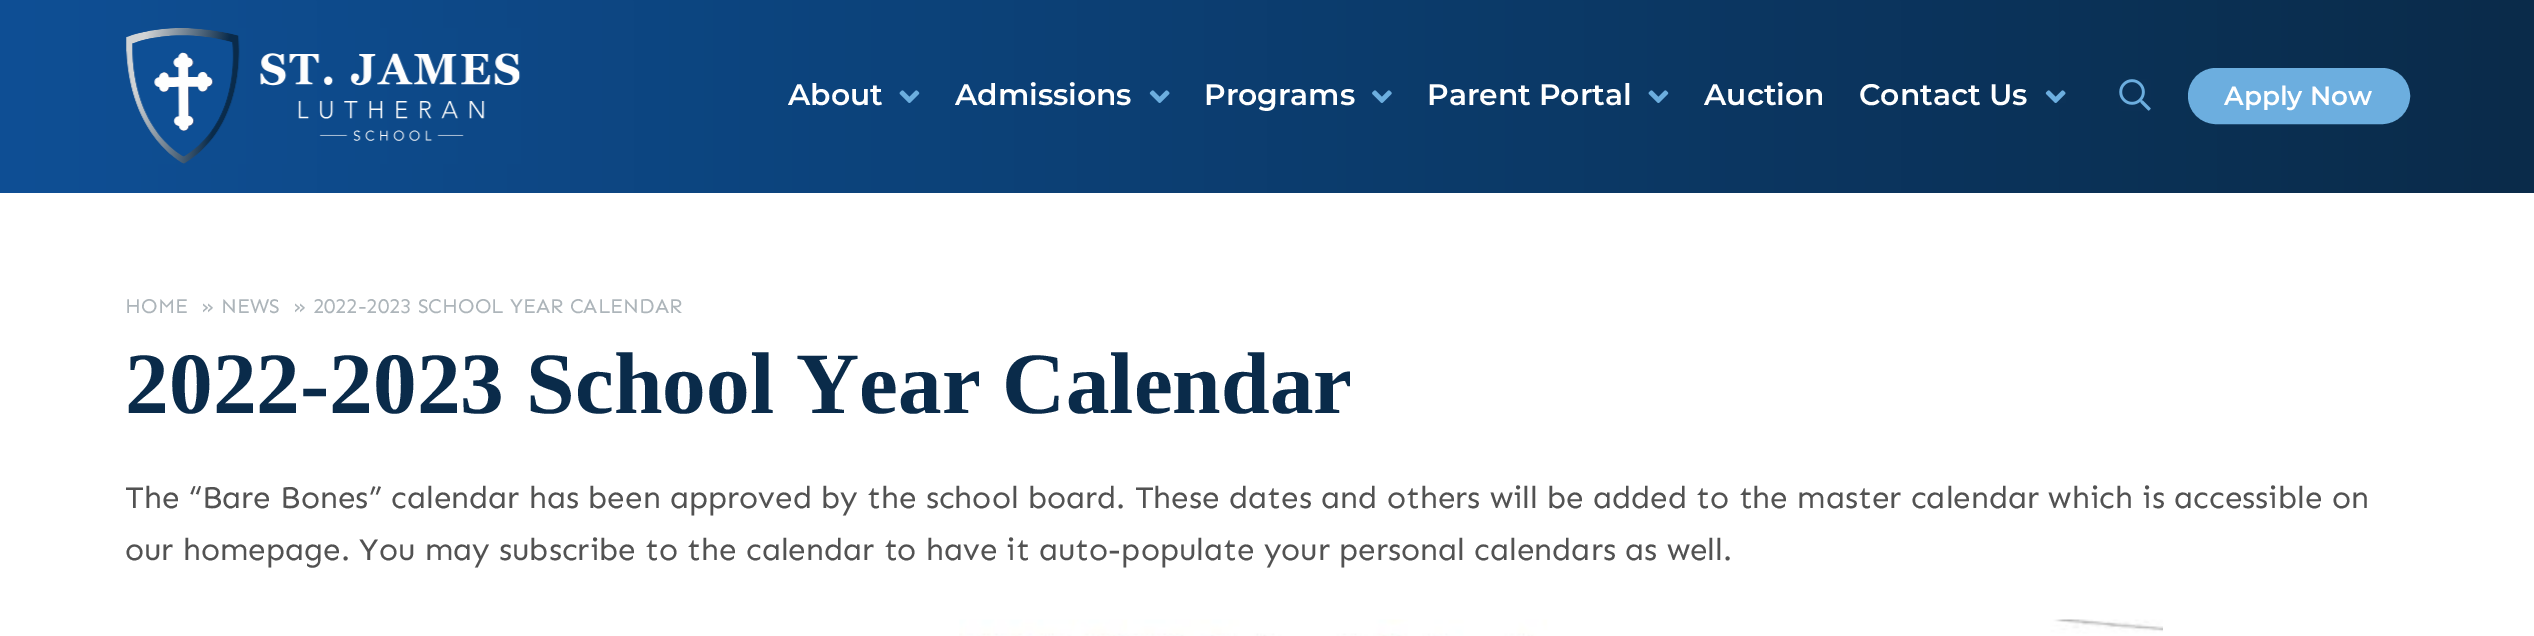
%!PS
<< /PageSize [2534 636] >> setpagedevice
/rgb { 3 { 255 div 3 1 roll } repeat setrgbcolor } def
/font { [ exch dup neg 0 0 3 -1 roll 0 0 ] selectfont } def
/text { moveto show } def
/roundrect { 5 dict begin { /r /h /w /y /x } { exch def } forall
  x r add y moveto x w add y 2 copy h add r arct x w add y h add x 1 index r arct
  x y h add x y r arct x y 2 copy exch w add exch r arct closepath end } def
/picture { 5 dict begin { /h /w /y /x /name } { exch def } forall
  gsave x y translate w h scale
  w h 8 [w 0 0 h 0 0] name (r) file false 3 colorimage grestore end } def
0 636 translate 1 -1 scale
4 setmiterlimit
255 255 255 rgb
0 0 2534 636 rectfill
gsave 0 0 moveto 2534 0 rlineto 0 193 rlineto -2534 0 rlineto closepath clip newpath
<< /ShadingType 2 /ColorSpace /DeviceRGB /Coords [0 96 2534 96] /Extend [true true] /Function << /FunctionType 2 /Domain [0 1] /C0 [0.055 0.31 0.584] /C1 [0.039 0.169 0.29] /N 1 >> >> shfill grestore
(img_01.rgb) 126 28 395 136 picture
(img_02.rgb) 899 90 21 13 picture
(img_03.rgb) 1149 90 21 13 picture
(img_04.rgb) 1372 90 20 13 picture
(img_05.rgb) 1648 90 21 13 picture
(img_06.rgb) 2045 90 21 13 picture
(img_07.rgb) 2119 79 32 32 picture
108 174 223 rgb
2189 69 220 54 27 roundrect gsave fill grestore
2 setlinewidth
stroke
(img_08.rgb) 959 619 1204 17 picture
/Montserrat-SemiBold 29.75 font
255 255 255 rgb
(About) 788 105 text
(Admissions) 955 105 text
(Programs) 1204 105 text
(Parent Portal) 1427 105 text
(Auction) 1704 105 text
(Contact Us) 1859 105 text
/Montserrat-SemiBold 26.25 font
(Apply Now) 2224 105 text
/Sen-Regular 21 font
173 181 186 rgb
(HOME) 125 313 text
(» NEWS) 201 313 text
(» 2022-2023 SCHOOL YEAR CALENDAR) 293 313 text
/LiberationSerif-Bold 87.5 font
10 43 74 rgb
(2022-2023 School Year Calendar) 125 413 text
/Sen-Regular 31.5 font
82 82 82 rgb
(The “Bare Bones” calendar has been approved by the school board. These dates and others will be added to the master calendar which is accessible on) 125 508 text
(our homepage. You may subscribe to the calendar to have it auto-populate your personal calendars as well.) 125 560 text
showpage
